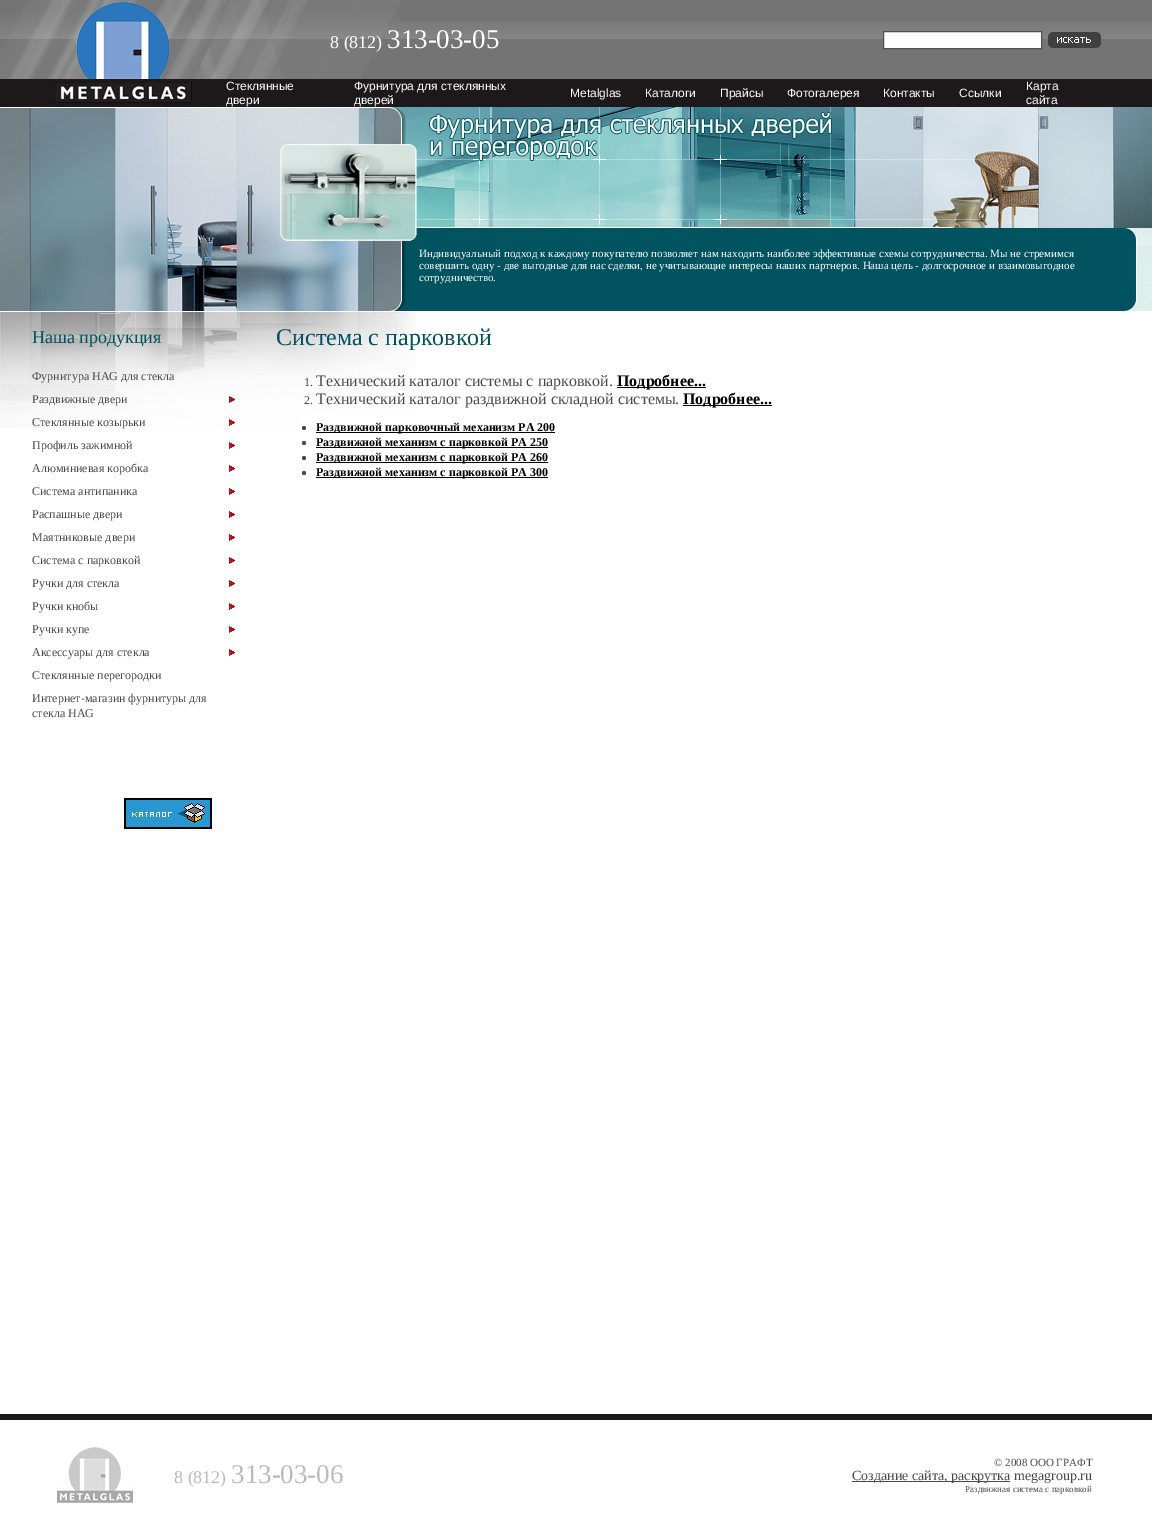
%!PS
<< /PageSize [1152 1529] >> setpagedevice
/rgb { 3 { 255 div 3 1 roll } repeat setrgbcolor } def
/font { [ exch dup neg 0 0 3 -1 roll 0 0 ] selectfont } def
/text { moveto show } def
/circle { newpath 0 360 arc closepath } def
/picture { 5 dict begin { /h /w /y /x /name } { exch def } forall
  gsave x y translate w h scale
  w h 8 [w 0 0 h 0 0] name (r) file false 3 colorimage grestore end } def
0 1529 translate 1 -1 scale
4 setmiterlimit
255 255 255 rgb
0 0 1152 1529 rectfill
116 116 116 rgb
400 0 752 79 rectfill
(img_01.rgb) 400 21 752 18 picture
(img_02.rgb) 0 0 292 79 picture
(img_03.rgb) 292 0 108 79 picture
255 255 255 rgb
883.5 31.5 moveto 158 0 rlineto 0 17 rlineto -158 0 rlineto closepath gsave fill grestore
80 80 80 rgb
stroke
(img_04.rgb) 1048 32 53 16 picture
29 24 25 rgb
0 79 1152 28 rectfill
(img_05.rgb) 54 82 138 22 picture
(img_06.rgb) 0 107 402 205 picture
(img_07.rgb) 402 107 219 121 picture
(img_08.rgb) 621 107 177 121 picture
(img_09.rgb) 798 107 354 121 picture
(img_10.rgb) 402 228 750 84 picture
(img_11.rgb) 402 228 17 83 picture
1 83 95 rgb
419 228 703 83 rectfill
(img_12.rgb) 1122 228 25 83 picture
(img_13.rgb) 0 312 416 116 picture
(img_14.rgb) 229 396 6 7 picture
(img_15.rgb) 229 419 6 7 picture
(img_16.rgb) 229 442 6 7 picture
(img_16.rgb) 229 465 6 7 picture
(img_16.rgb) 229 488 6 7 picture
(img_16.rgb) 229 511 6 7 picture
(img_16.rgb) 229 534 6 7 picture
(img_16.rgb) 229 557 6 7 picture
(img_16.rgb) 229 580 6 7 picture
(img_16.rgb) 229 603 6 7 picture
(img_16.rgb) 229 626 6 7 picture
(img_16.rgb) 229 649 6 7 picture
(img_17.rgb) 124 798 88 31 picture
0 0 0 rgb
617 387 89 1 rectfill
683 405 89 1 rectfill
74 74 73 rgb
304 428 2 circle fill
0 0 0 rgb
316 432 239 1 rectfill
74 74 73 rgb
304 443 2 circle fill
0 0 0 rgb
316 447 232 1 rectfill
74 74 73 rgb
304 458 2 circle fill
0 0 0 rgb
316 462 232 1 rectfill
74 74 73 rgb
304 473 2 circle fill
0 0 0 rgb
316 477 232 1 rectfill
29 24 25 rgb
0 1414 1152 6 rectfill
(img_18.rgb) 57 1447 79 58 picture
74 74 73 rgb
852 1481 158 1 rectfill
/LiberationSerif-Regular 18 font
255 255 255 rgb
(8 \(812\)) 330 48 text
/LiberationSerif-Regular 27 font
(313-03-05) 387 48 text
/LiberationSans-Regular 12 font
(Стеклянные) 226 90 text
(двери) 226 104 text
(Фурнитура для стеклянных) 354 90 text
(дверей) 354 104 text
(Metalglas) 570 97 text
(Каталоги) 645 97 text
(Прайсы) 720 97 text
(Фотогалерея) 787 97 text
(Контакты) 883 97 text
(Ссылки) 959 97 text
(Карта) 1026 90 text
(сайта) 1026 104 text
/LiberationSerif-Regular 11 font
(Индивидуальный подход к каждому покупателю позволяет нам находить наиболее эффективные схемы сотрудничества. Мы не стремимся) 419 257 text
(совершить одну - две выгодные для нас сделки, не учитывающие интересы наших партнеров. Наша цель - долгосрочное и взаимовыгодное) 419 269 text
(сотрудничество.) 419 281 text
/LiberationSerif-Regular 18 font
0 83 96 rgb
(Наша продукция) 32 343 text
/LiberationSerif-Regular 12 font
74 74 73 rgb
(Фурнитура HAG для стекла) 32 380 text
(Раздвижные двери) 32 403 text
(Стеклянные козырьки) 32 426 text
(Профиль зажимной) 32 449 text
(Алюминиевая коробка) 32 472 text
(Система антипаника) 32 495 text
(Распашные двери) 32 518 text
(Маятниковые двери) 32 541 text
(Система с парковкой) 32 564 text
(Ручки для стекла) 32 587 text
(Ручки кнобы) 32 610 text
(Ручки купе) 32 633 text
(Аксессуары для стекла) 32 656 text
(Стеклянные перегородки) 32 679 text
(Интернет-магазин фурнитуры для) 32 702 text
(стекла HAG) 32 717 text
/LiberationSerif-Regular 24 font
0 83 96 rgb
(Система с парковкой) 276 345 text
/LiberationSerif-Regular 12 font
74 74 73 rgb
(1.) 304 386 text
/LiberationSerif-Regular 16 font
(Технический каталог системы с парковкой.) 316 386 text
/LiberationSerif-Bold 16 font
0 0 0 rgb
(Подробнее...) 617 386 text
/LiberationSerif-Regular 12 font
74 74 73 rgb
(2.) 304 404 text
/LiberationSerif-Regular 16 font
(Технический каталог раздвижной складной системы.) 316 404 text
/LiberationSerif-Bold 16 font
0 0 0 rgb
(Подробнее...) 683 404 text
/LiberationSerif-Bold 12 font
(Раздвижной парковочный механизм PA 200) 316 431 text
(Раздвижной механизм с парковкой PA 250) 316 446 text
(Раздвижной механизм с парковкой PA 260) 316 461 text
(Раздвижной механизм с парковкой PA 300) 316 476 text
/LiberationSerif-Regular 18 font
187 187 187 rgb
(8 \(812\)) 174 1483 text
/LiberationSerif-Regular 27 font
(313-03-06) 231 1483 text
/LiberationSerif-Regular 11 font
74 74 73 rgb
(© 2008 ООО ГРАФТ) 994 1466 text
/LiberationSerif-Regular 14 font
(Создание сайта, раскрутка megagroup.ru) 852 1480 text
/LiberationSerif-Regular 9 font
(Раздвижная система с парковкой) 965 1492 text
showpage
